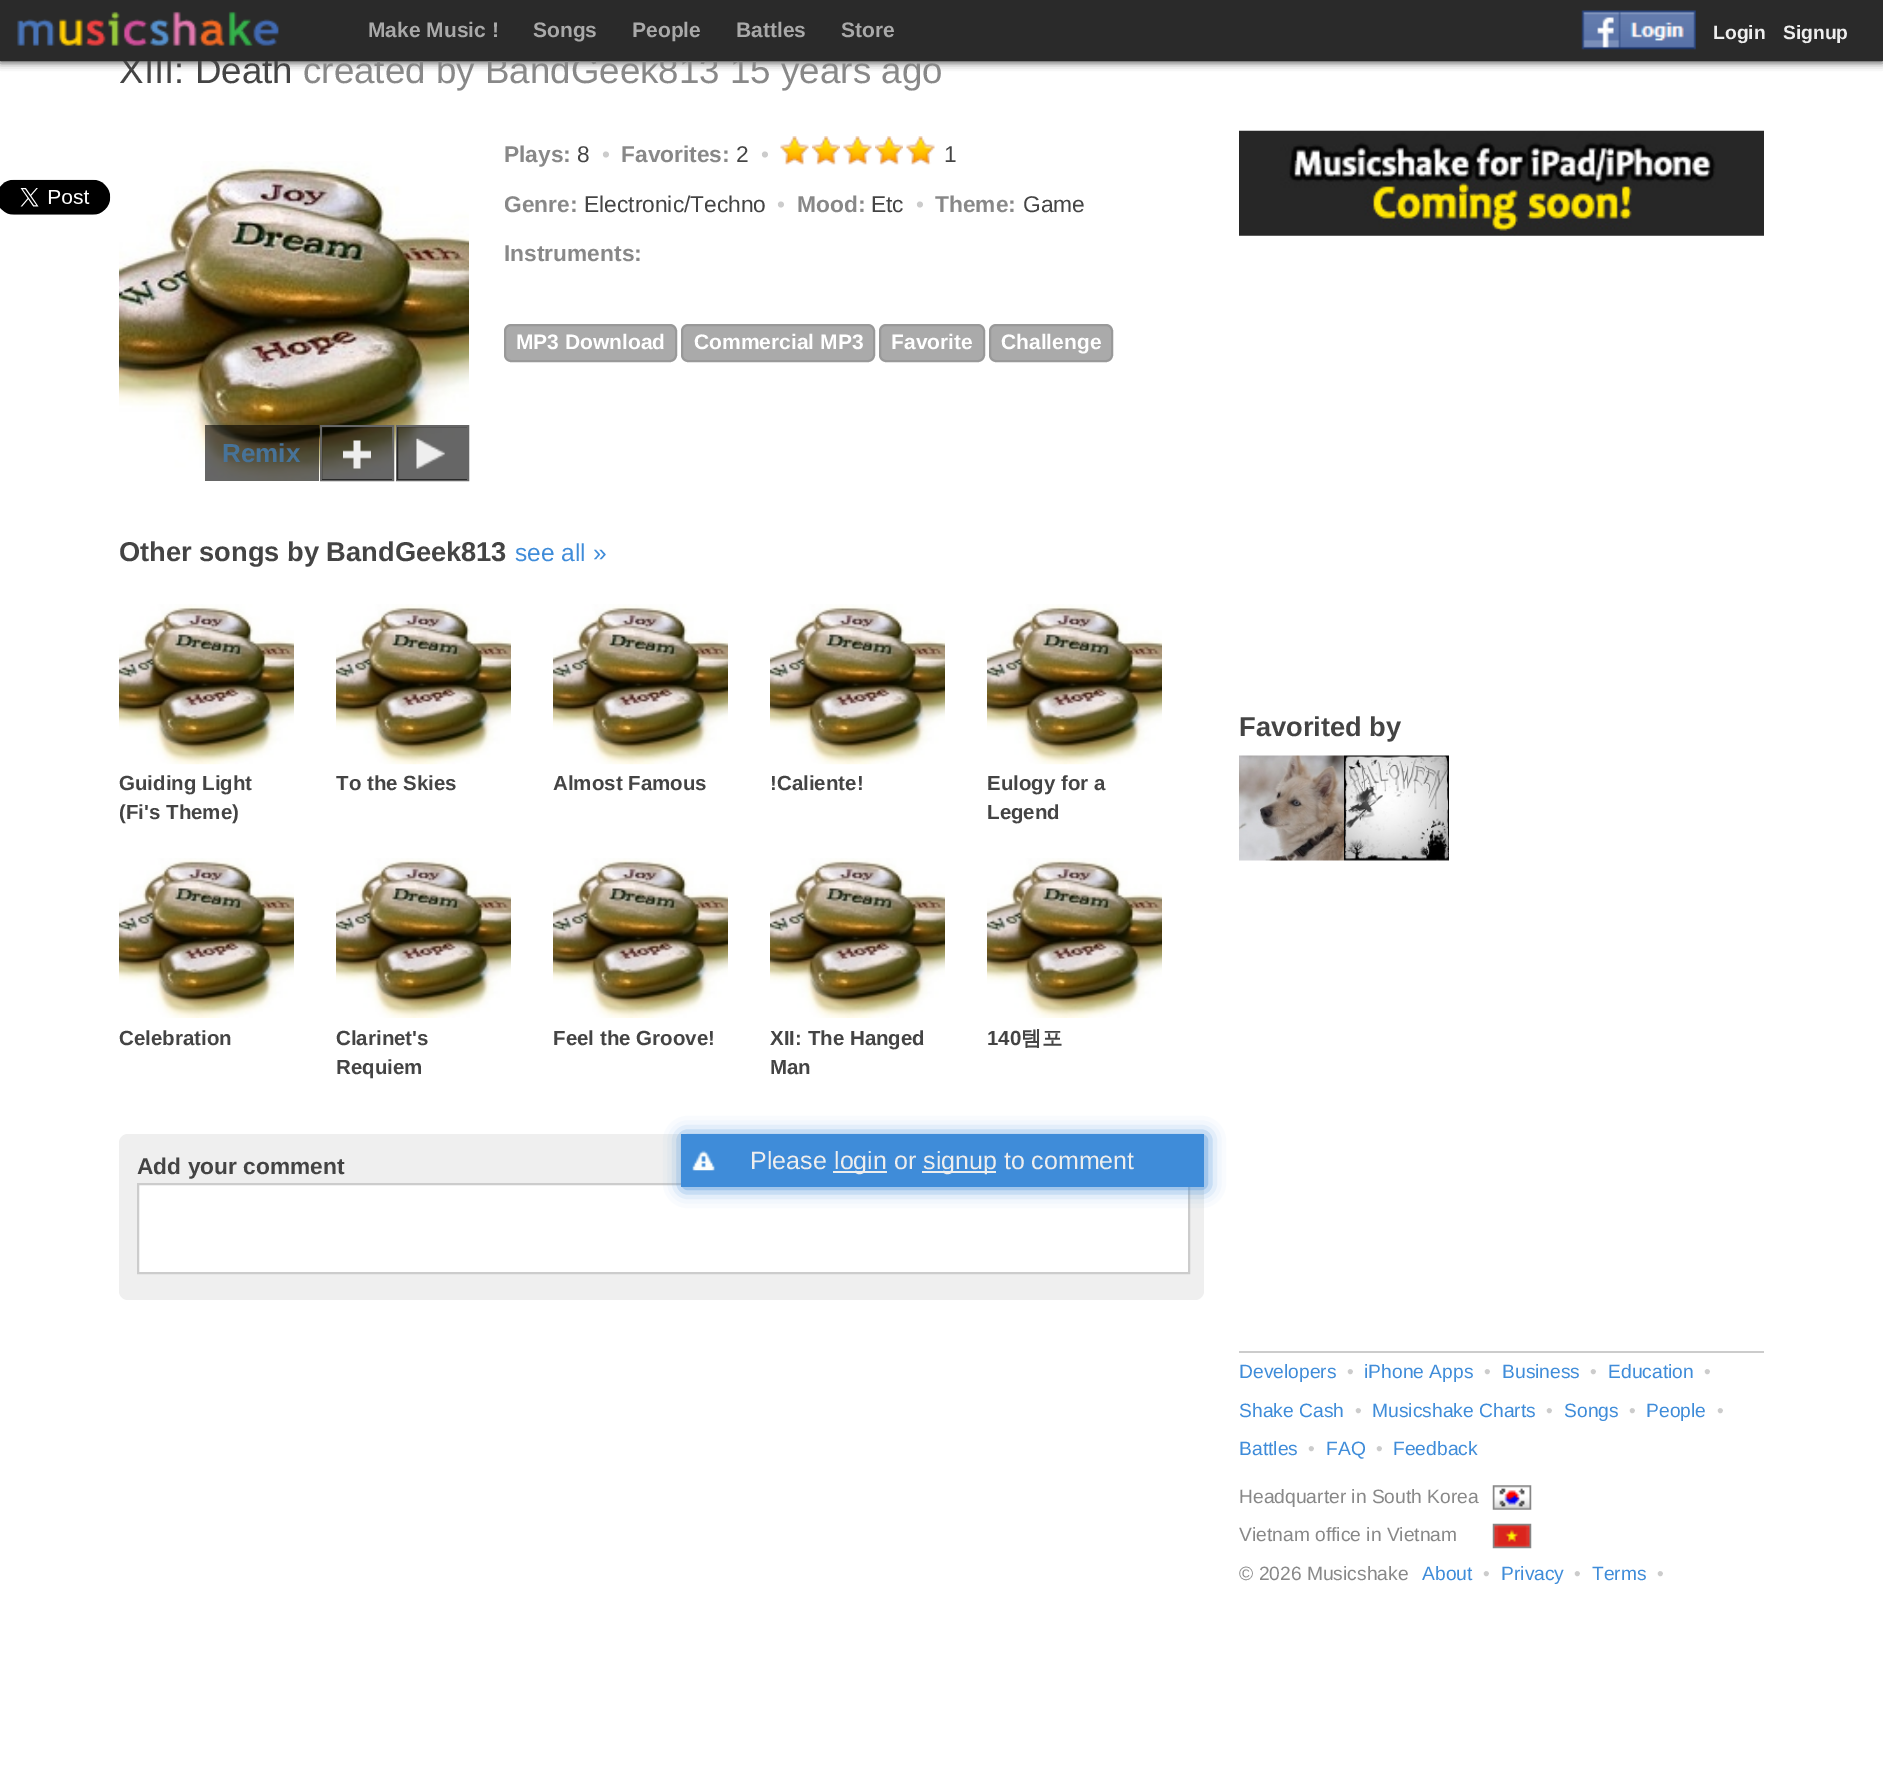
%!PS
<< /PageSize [1883 1788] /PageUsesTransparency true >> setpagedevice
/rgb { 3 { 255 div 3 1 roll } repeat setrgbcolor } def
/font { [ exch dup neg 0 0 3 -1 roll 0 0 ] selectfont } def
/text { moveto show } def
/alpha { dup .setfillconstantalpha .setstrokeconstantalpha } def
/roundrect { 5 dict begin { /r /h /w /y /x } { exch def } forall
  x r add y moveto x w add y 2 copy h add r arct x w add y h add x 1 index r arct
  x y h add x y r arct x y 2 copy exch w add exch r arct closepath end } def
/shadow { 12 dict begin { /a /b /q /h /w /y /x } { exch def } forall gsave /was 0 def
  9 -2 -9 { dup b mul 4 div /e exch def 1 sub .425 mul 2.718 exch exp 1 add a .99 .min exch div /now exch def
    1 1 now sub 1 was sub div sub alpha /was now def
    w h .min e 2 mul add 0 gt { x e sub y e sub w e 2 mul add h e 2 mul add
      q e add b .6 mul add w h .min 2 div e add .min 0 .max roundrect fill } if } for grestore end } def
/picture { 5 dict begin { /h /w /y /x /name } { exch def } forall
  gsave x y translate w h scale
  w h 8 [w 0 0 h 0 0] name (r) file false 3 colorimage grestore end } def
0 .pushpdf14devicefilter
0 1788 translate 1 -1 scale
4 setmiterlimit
255 255 255 rgb
0 0 1883 1788 rectfill
0 0 0 rgb
0 0 1883 61 0 4.5 1 shadow
(img_03.rgb) 0 179 111 36 picture
(img_04.rgb) 780 136 29 29 picture
(img_05.rgb) 812 136 28 29 picture
(img_06.rgb) 843 136 29 29 picture
(img_05.rgb) 875 136 28 29 picture
(img_07.rgb) 906 136 29 29 picture
170 170 170 rgb
505 325 171 36 6 roundrect gsave fill grestore
153 153 153 rgb
2 setlinewidth
stroke
170 170 170 rgb
682 325 192 36 6 roundrect gsave fill grestore
153 153 153 rgb
stroke
170 170 170 rgb
880 325 104 36 6 roundrect gsave fill grestore
153 153 153 rgb
stroke
170 170 170 rgb
990 325 122 36 6 roundrect gsave fill grestore
153 153 153 rgb
stroke
(img_08.rgb) 119 161 350 320 picture
0.6 alpha
0 0 0 rgb
205 425 114 56 rectfill
1 alpha
102 102 102 rgb
321 426 72 54 rectstroke
0.6 alpha
0 0 0 rgb
322 427 70 53 rectfill
1 alpha
(img_09.rgb) 343 440 28 29 picture
102 102 102 rgb
397 426 71 54 rectstroke
0.6 alpha
0 0 0 rgb
397 427 70 53 rectfill
1 alpha
(img_10.rgb) 416 438 29 31 picture
(img_11.rgb) 119 604 175 161 picture
(img_11.rgb) 336 604 175 161 picture
(img_11.rgb) 553 604 175 161 picture
(img_12.rgb) 770 604 175 161 picture
(img_13.rgb) 987 604 175 161 picture
(img_14.rgb) 119 858 175 160 picture
(img_14.rgb) 336 858 175 160 picture
(img_14.rgb) 553 858 175 160 picture
(img_15.rgb) 770 858 175 160 picture
(img_16.rgb) 987 858 175 160 picture
239 239 239 rgb
119 1134 1085 166 9 roundrect fill
255 255 255 rgb
138 1184 moveto 1051 0 rlineto 0 89 rlineto -1051 0 rlineto closepath gsave fill grestore
204 204 204 rgb
stroke
63 140 217 rgb
683 1136 523 52 0 9 1 shadow
681 1134 523 53 rectfill
(img_17.rgb) 692 1150 23 21 picture
238 238 238 rgb
833 1171 54 2 rectfill
922 1171 74 2 rectfill
(img_18.rgb) 1239 130 525 106 picture
(img_19.rgb) 1239 755 105 106 picture
(img_20.rgb) 1344 755 105 106 picture
204 204 204 rgb
1239 1351 525 2 rectfill
(img_21.rgb) 1492 1485 40 25 picture
(img_22.rgb) 1492 1523 40 26 picture
/LiberationSans-Regular 36.75 font
68 68 68 rgb
(XIII: Death) 119 83 text
136 136 136 rgb
(created by BandGeek813 15 years ago) 303 83 text
42 42 42 rgb
0 0 1883 61 rectfill
/LiberationSans-Bold 19.25 font
238 238 238 rgb
(Signup) 1783 39 text
(Login) 1713 39 text
(img_02.rgb) 1581 10 115 40 picture
(img_01.rgb) 17 11 262 35 picture
/LiberationSans-Bold 21 font
169 169 169 rgb
(Store) 841 37 text
(Battles) 736 37 text
(People) 632 37 text
(Songs) 533 37 text
(Make Music !) 368 37 text
/LiberationSans-Bold 22.75 font
136 136 136 rgb
(Plays:) 504 162 text
/LiberationSans-Regular 22.75 font
68 68 68 rgb
(8) 577 162 text
204 204 204 rgb
(•) 602 162 text
/LiberationSans-Bold 22.75 font
136 136 136 rgb
(Favorites:) 621 162 text
/LiberationSans-Regular 22.75 font
68 68 68 rgb
(2) 736 162 text
204 204 204 rgb
(•) 761 162 text
68 68 68 rgb
(1) 944 162 text
/LiberationSans-Bold 22.75 font
136 136 136 rgb
(Genre:) 504 212 text
/LiberationSans-Regular 22.75 font
68 68 68 rgb
(Electronic/Techno) 584 212 text
204 204 204 rgb
(•) 777 212 text
/LiberationSans-Bold 22.75 font
136 136 136 rgb
(Mood:) 797 212 text
/LiberationSans-Regular 22.75 font
68 68 68 rgb
(Etc) 871 212 text
204 204 204 rgb
(•) 916 212 text
/LiberationSans-Bold 22.75 font
136 136 136 rgb
(Theme:) 935 212 text
/LiberationSans-Regular 22.75 font
68 68 68 rgb
(Game) 1023 212 text
/LiberationSans-Bold 22.75 font
136 136 136 rgb
(Instruments:) 504 261 text
/LiberationSans-Bold 21 font
255 255 255 rgb
(MP3 Download) 516 349 text
(Commercial MP3) 694 349 text
(Favorite) 891 349 text
(Challenge) 1001 349 text
/LiberationSans-Bold 26 font
71 115 153 rgb
(Remix) 222 462 text
/LiberationSans-Bold 27.25 font
68 68 68 rgb
(Other songs by BandGeek813) 119 561 text
/LiberationSans-Regular 24.5 font
63 140 217 rgb
(see all ») 515 561 text
/LiberationSans-Bold 20.5 font
68 68 68 rgb
(Guiding Light) 119 790 text
(\(Fi's Theme\)) 119 819 text
(To the Skies) 336 790 text
(Almost Famous) 553 790 text
(!Caliente!) 770 790 text
(Eulogy for a) 987 790 text
(Legend) 987 819 text
(Celebration) 119 1045 text
(Clarinet's) 336 1045 text
(Requiem) 336 1074 text
(Feel the Groove!) 553 1045 text
(XII: The Hanged) 770 1045 text
(Man) 770 1074 text
(140) 987 1045 text
/WenQuanYiZenHei-Bold 20.5 font
(템포) 1021 1045 text
/LiberationSans-Bold 22.75 font
(Add your comment) 137 1174 text
/LiberationSans-Regular 25 font
238 238 238 rgb
(Please) 750 1169 text
(login or) 834 1169 text
(signup to comment) 923 1169 text
/LiberationSans-Bold 27.25 font
68 68 68 rgb
(Favorited by) 1239 736 text
/LiberationSans-Regular 19.25 font
63 140 217 rgb
(Developers) 1239 1378 text
204 204 204 rgb
(•) 1347 1378 text
63 140 217 rgb
(iPhone Apps) 1364 1378 text
204 204 204 rgb
(•) 1484 1378 text
63 140 217 rgb
(Business) 1502 1378 text
204 204 204 rgb
(•) 1590 1378 text
63 140 217 rgb
(Education) 1608 1378 text
204 204 204 rgb
(•) 1704 1378 text
63 140 217 rgb
(Shake Cash) 1239 1417 text
204 204 204 rgb
(•) 1355 1417 text
63 140 217 rgb
(Musicshake Charts) 1372 1417 text
204 204 204 rgb
(•) 1546 1417 text
63 140 217 rgb
(Songs) 1564 1417 text
204 204 204 rgb
(•) 1629 1417 text
63 140 217 rgb
(People) 1646 1417 text
204 204 204 rgb
(•) 1717 1417 text
63 140 217 rgb
(Battles) 1239 1455 text
204 204 204 rgb
(•) 1308 1455 text
63 140 217 rgb
(FAQ) 1326 1455 text
204 204 204 rgb
(•) 1376 1455 text
63 140 217 rgb
(Feedback) 1393 1455 text
136 136 136 rgb
(Headquarter in South Korea) 1239 1503 text
(Vietnam office in Vietnam) 1239 1541 text
(© 2026 Musicshake) 1239 1580 text
63 140 217 rgb
(About) 1422 1580 text
204 204 204 rgb
(•) 1483 1580 text
63 140 217 rgb
(Privacy) 1501 1580 text
204 204 204 rgb
(•) 1574 1580 text
63 140 217 rgb
(Terms) 1592 1580 text
204 204 204 rgb
(•) 1657 1580 text
.poppdf14devicefilter showpage
